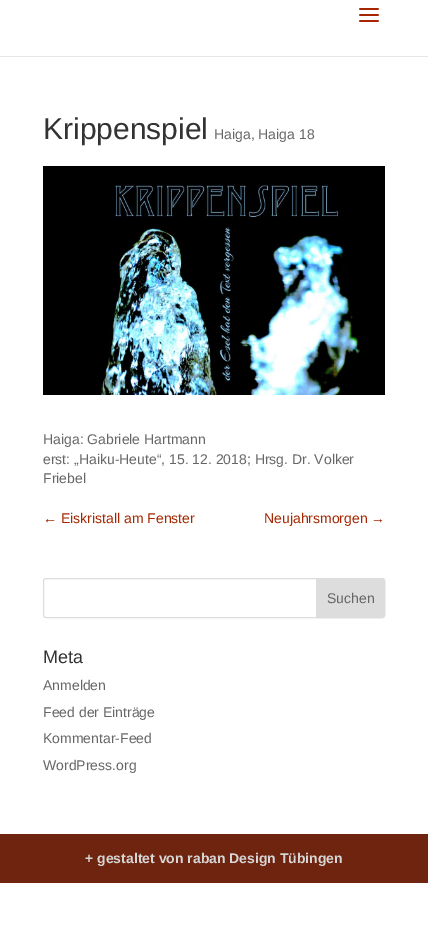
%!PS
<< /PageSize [428 939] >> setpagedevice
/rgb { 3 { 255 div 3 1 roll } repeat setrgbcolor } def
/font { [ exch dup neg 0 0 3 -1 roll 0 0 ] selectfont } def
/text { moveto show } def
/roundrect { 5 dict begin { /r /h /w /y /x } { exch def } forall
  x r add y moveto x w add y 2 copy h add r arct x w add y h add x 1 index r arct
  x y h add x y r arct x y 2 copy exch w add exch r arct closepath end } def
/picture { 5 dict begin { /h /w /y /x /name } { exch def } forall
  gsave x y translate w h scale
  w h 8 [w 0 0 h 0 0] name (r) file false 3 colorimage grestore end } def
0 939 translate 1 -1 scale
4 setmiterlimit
255 255 255 rgb
0 0 428 939 rectfill
230 230 230 rgb
0 56 428 1 rectfill
(img_01.rgb) 359 8 20 14 picture
(img_02.rgb) 43 166 342 229 picture
221 221 221 rgb
43.5 578.5 341 39 2.5 roundrect stroke
316.5 578.5 moveto 65.5 0 rlineto 1.5 0 2.5 1 2.5 2.5 rcurveto 0 34 rlineto 0 1.5 -1 2.5 -2.5 2.5 rcurveto -65.5 0 rlineto closepath gsave fill grestore
stroke
110 36 14 rgb
0 834 428 49 rectfill
/LiberationSans-Regular 30 font
51 51 51 rgb
(Krippenspiel) 43 139 text
/LiberationSans-Regular 14 font
102 102 102 rgb
(Haiga, Haiga 18) 214 139 text
(Haiga: Gabriele Hartmann) 43 444 text
(erst: „Haiku-Heute“, 15. 12. 2018; Hrsg. Dr. Volker) 43 464 text
(Friebel) 43 483 text
165 38 0 rgb
(← Eiskristall am Fenster) 43 523 text
(Neujahrsmorgen →) 264 523 text
102 102 102 rgb
(Suchen) 327 603 text
/LiberationSans-Regular 18 font
51 51 51 rgb
(Meta) 43 663 text
/LiberationSans-Regular 14 font
102 102 102 rgb
(Anmelden) 43 690 text
(Feed der Einträge) 43 717 text
(Kommentar-Feed) 43 743 text
(WordPress.org) 43 770 text
/LiberationSans-Bold 14 font
214 214 214 rgb
(+ gestaltet von raban Design Tübingen) 85 863 text
showpage
